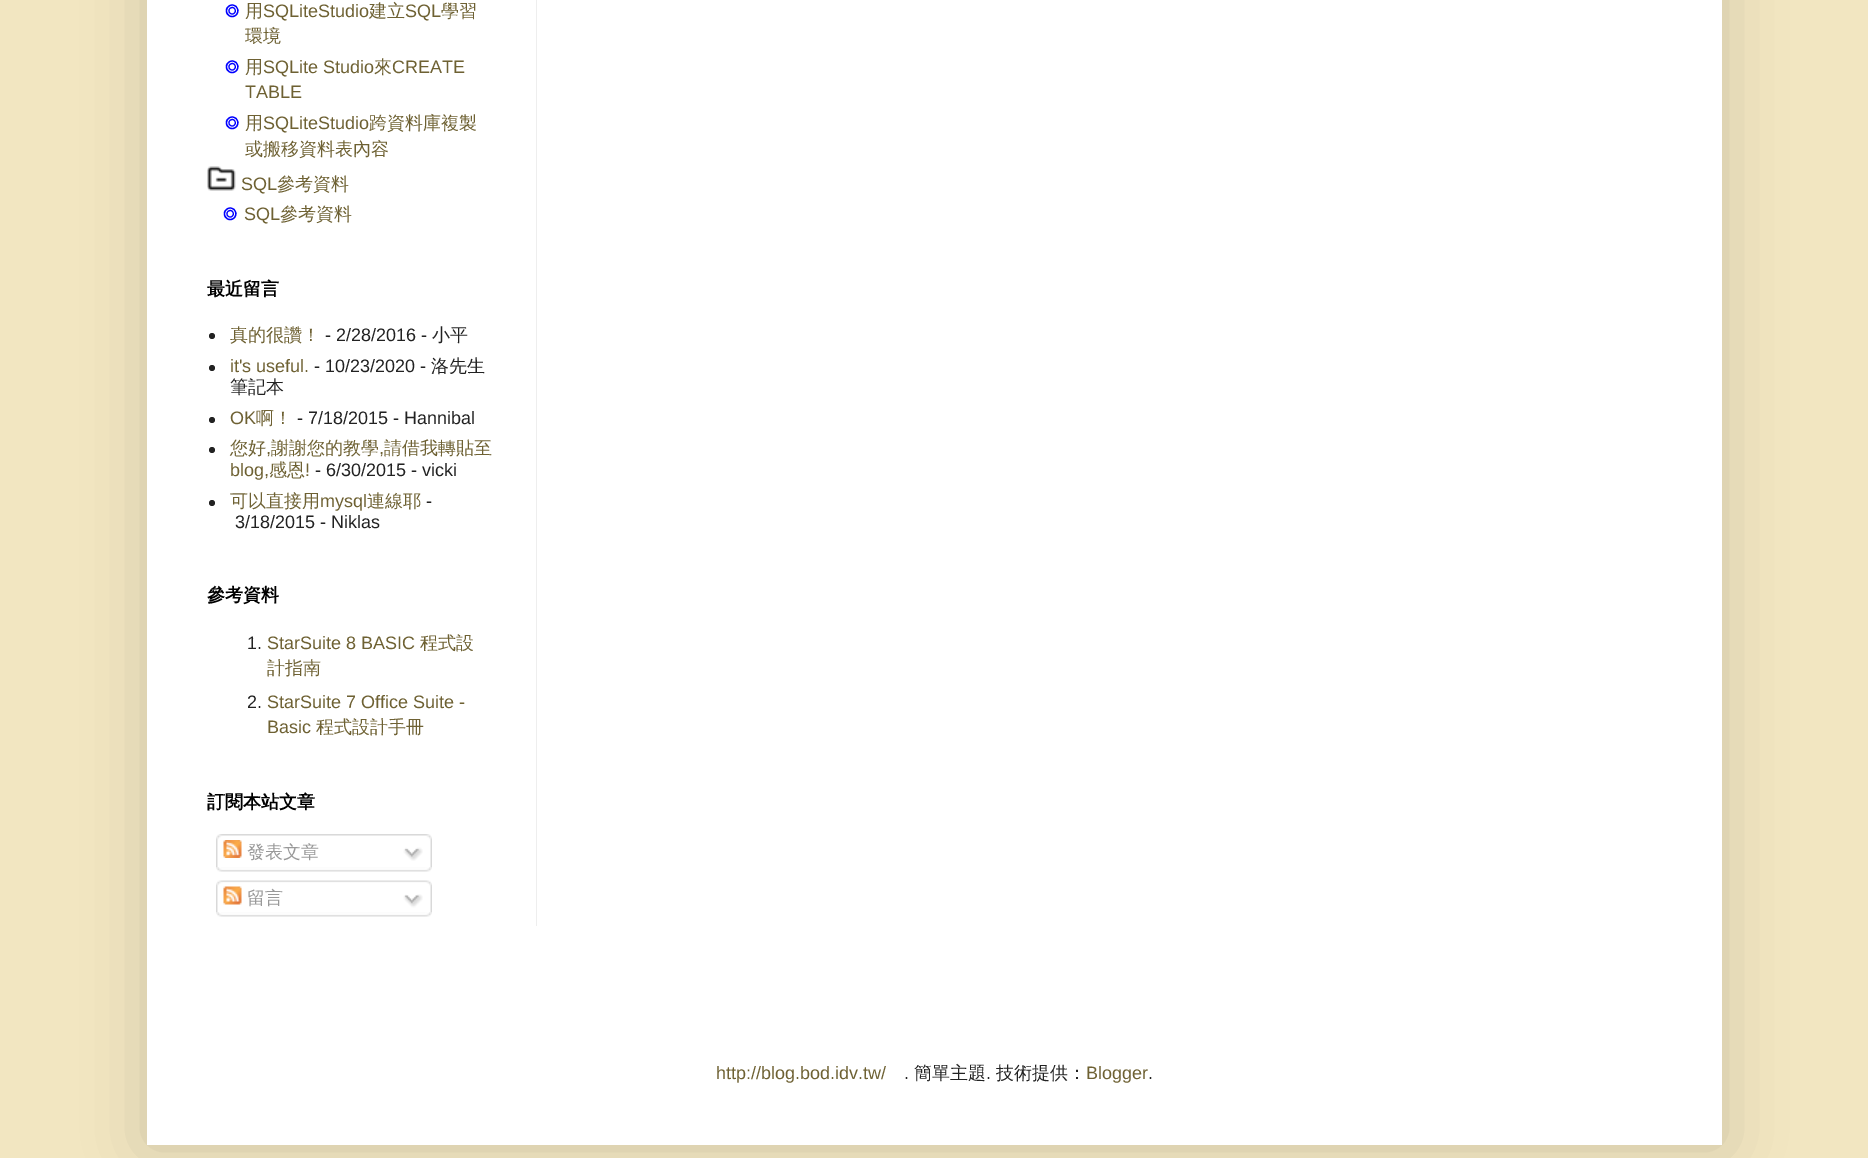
%!PS
<< /PageSize [1868 1158] /PageUsesTransparency true >> setpagedevice
/rgb { 3 { 255 div 3 1 roll } repeat setrgbcolor } def
/font { [ exch dup neg 0 0 3 -1 roll 0 0 ] selectfont } def
/text { moveto show } def
/alpha { dup .setfillconstantalpha .setstrokeconstantalpha } def
/circle { newpath 0 360 arc closepath } def
/roundrect { 5 dict begin { /r /h /w /y /x } { exch def } forall
  x r add y moveto x w add y 2 copy h add r arct x w add y h add x 1 index r arct
  x y h add x y r arct x y 2 copy exch w add exch r arct closepath end } def
/shadow { 12 dict begin { /a /b /q /h /w /y /x } { exch def } forall gsave /was 0 def
  9 -2 -9 { dup b mul 4 div /e exch def 1 sub .425 mul 2.718 exch exp 1 add a .99 .min exch div /now exch def
    1 1 now sub 1 was sub div sub alpha /was now def
    w h .min e 2 mul add 0 gt { x e sub y e sub w e 2 mul add h e 2 mul add
      q e add b .6 mul add w h .min 2 div e add .min 0 .max roundrect fill } if } for grestore end } def
/picture { 5 dict begin { /h /w /y /x /name } { exch def } forall
  gsave x y translate w h scale
  w h 8 [w 0 0 h 0 0] name (r) file false 3 colorimage grestore end } def
0 .pushpdf14devicefilter
0 1158 translate 1 -1 scale
4 setmiterlimit
242 230 193 rgb
0 0 1868 1158 rectfill
0 0 0 rgb
147 -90 1575 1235 0 30 0.15 shadow
255 255 255 rgb
147 0 1575 1145 rectfill
(img_01.rgb) 207 166 29 25 picture
34 34 34 rgb
212 336 3 circle fill
212 368 3 circle fill
212 420 3 circle fill
212 450 3 circle fill
212 503 3 circle fill
(img_02.rgb) 216 834 216 33 picture
(img_03.rgb) 223 840 19 18 picture
(img_04.rgb) 403 847 20 14 picture
(img_05.rgb) 216 867 216 5 picture
(img_06.rgb) 216 880 216 32 picture
(img_07.rgb) 223 886 19 19 picture
(img_08.rgb) 403 894 20 14 picture
(img_05.rgb) 216 912 216 5 picture
238 238 238 rgb
536 0 1 926 rectfill
/FreeSans-SemiBold 18 font
0 0 255 rgb
(◎) 225 17 text
/WenQuanYiZenHei-Medium 18 font
110 97 51 rgb
(用) 245 17 text
/LiberationSans-Regular 18 font
(SQLiteStudio) 263 17 text
/WenQuanYiZenHei-Medium 18 font
(建立) 369 17 text
/LiberationSans-Regular 18 font
(SQL) 405 17 text
/WenQuanYiZenHei-Medium 18 font
(學習) 441 17 text
(環境) 245 42 text
/FreeSans-SemiBold 18 font
0 0 255 rgb
(◎) 225 73 text
/WenQuanYiZenHei-Medium 18 font
110 97 51 rgb
(用) 245 73 text
/LiberationSans-Regular 18 font
(SQLite Studio) 263 73 text
/WenQuanYiZenHei-Medium 18 font
(來) 374 73 text
/LiberationSans-Regular 18 font
(CREATE) 392 73 text
(TABLE) 245 98 text
/FreeSans-SemiBold 18 font
0 0 255 rgb
(◎) 225 129 text
/WenQuanYiZenHei-Medium 18 font
110 97 51 rgb
(用) 245 129 text
/LiberationSans-Regular 18 font
(SQLiteStudio) 263 129 text
/WenQuanYiZenHei-Medium 18 font
(跨資料庫複製) 369 129 text
(或搬移資料表內容) 245 155 text
/LiberationSans-Regular 18 font
(SQL) 241 190 text
/WenQuanYiZenHei-Medium 18 font
(參考資料) 277 190 text
/FreeSans-SemiBold 18 font
0 0 255 rgb
(◎) 223 220 text
/LiberationSans-Regular 18 font
110 97 51 rgb
(SQL) 244 220 text
/WenQuanYiZenHei-Medium 18 font
(參考資料) 280 220 text
/WenQuanYiZenHei-Bold 18 font
0 0 0 rgb
(最近留言) 207 295 text
/WenQuanYiZenHei-Medium 18 font
110 97 51 rgb
(真的很讚！) 230 341 text
/LiberationSans-Regular 18 font
34 34 34 rgb
(- 2/28/2016 -) 325 341 text
/WenQuanYiZenHei-Medium 18 font
(小平) 432 341 text
/LiberationSans-Regular 18 font
110 97 51 rgb
(it's useful.) 230 372 text
34 34 34 rgb
(- 10/23/2020 -) 314 372 text
/WenQuanYiZenHei-Medium 18 font
(洛先生) 431 372 text
(筆記本) 230 393 text
/LiberationSans-Regular 18 font
110 97 51 rgb
(OK) 230 424 text
/WenQuanYiZenHei-Medium 18 font
(啊！) 256 424 text
/LiberationSans-Regular 18 font
34 34 34 rgb
(- 7/18/2015 - Hannibal) 297 424 text
/WenQuanYiZenHei-Medium 18 font
110 97 51 rgb
(您好) 230 454 text
(謝謝您的教學) 271 454 text
(請借我轉貼至) 384 454 text
/LiberationSans-Regular 18 font
(,) 266 454 text
(,) 379 454 text
(blog,) 230 476 text
/WenQuanYiZenHei-Medium 18 font
(感恩) 269 476 text
/LiberationSans-Regular 18 font
(!) 305 476 text
34 34 34 rgb
(- 6/30/2015 - vicki) 315 476 text
/WenQuanYiZenHei-Medium 18 font
110 97 51 rgb
(可以直接用) 230 507 text
/LiberationSans-Regular 18 font
(mysql) 320 507 text
/WenQuanYiZenHei-Medium 18 font
(連線耶) 367 507 text
/LiberationSans-Regular 18 font
34 34 34 rgb
(-) 426 507 text
(3/18/2015 - Niklas) 235 528 text
/WenQuanYiZenHei-Bold 18 font
0 0 0 rgb
(參考資料) 207 601 text
/LiberationSans-Regular 18 font
34 34 34 rgb
(1.) 247 649 text
110 97 51 rgb
(StarSuite 8 BASIC) 267 649 text
/WenQuanYiZenHei-Medium 18 font
(程式設) 420 649 text
(計指南) 267 674 text
/LiberationSans-Regular 18 font
34 34 34 rgb
(2.) 247 708 text
110 97 51 rgb
(StarSuite 7 Office Suite -) 267 708 text
(Basic) 267 733 text
/WenQuanYiZenHei-Medium 18 font
(程式設計手冊) 316 733 text
/WenQuanYiZenHei-Bold 18 font
0 0 0 rgb
(訂閱本站文章) 207 808 text
/WenQuanYiZenHei-Medium 18 font
153 153 153 rgb
(發表文章) 247 858 text
(留言) 247 904 text
/LiberationSans-Regular 18 font
110 97 51 rgb
(http://blog.bod.idv.tw/) 716 1079 text
34 34 34 rgb
(.) 904 1079 text
/WenQuanYiZenHei-Medium 18 font
(簡單主題) 914 1079 text
/LiberationSans-Regular 18 font
(.) 986 1079 text
/WenQuanYiZenHei-Medium 18 font
(技術提供：) 996 1079 text
/LiberationSans-Regular 18 font
110 97 51 rgb
(Blogger) 1086 1079 text
34 34 34 rgb
(.) 1148 1079 text
.poppdf14devicefilter showpage
